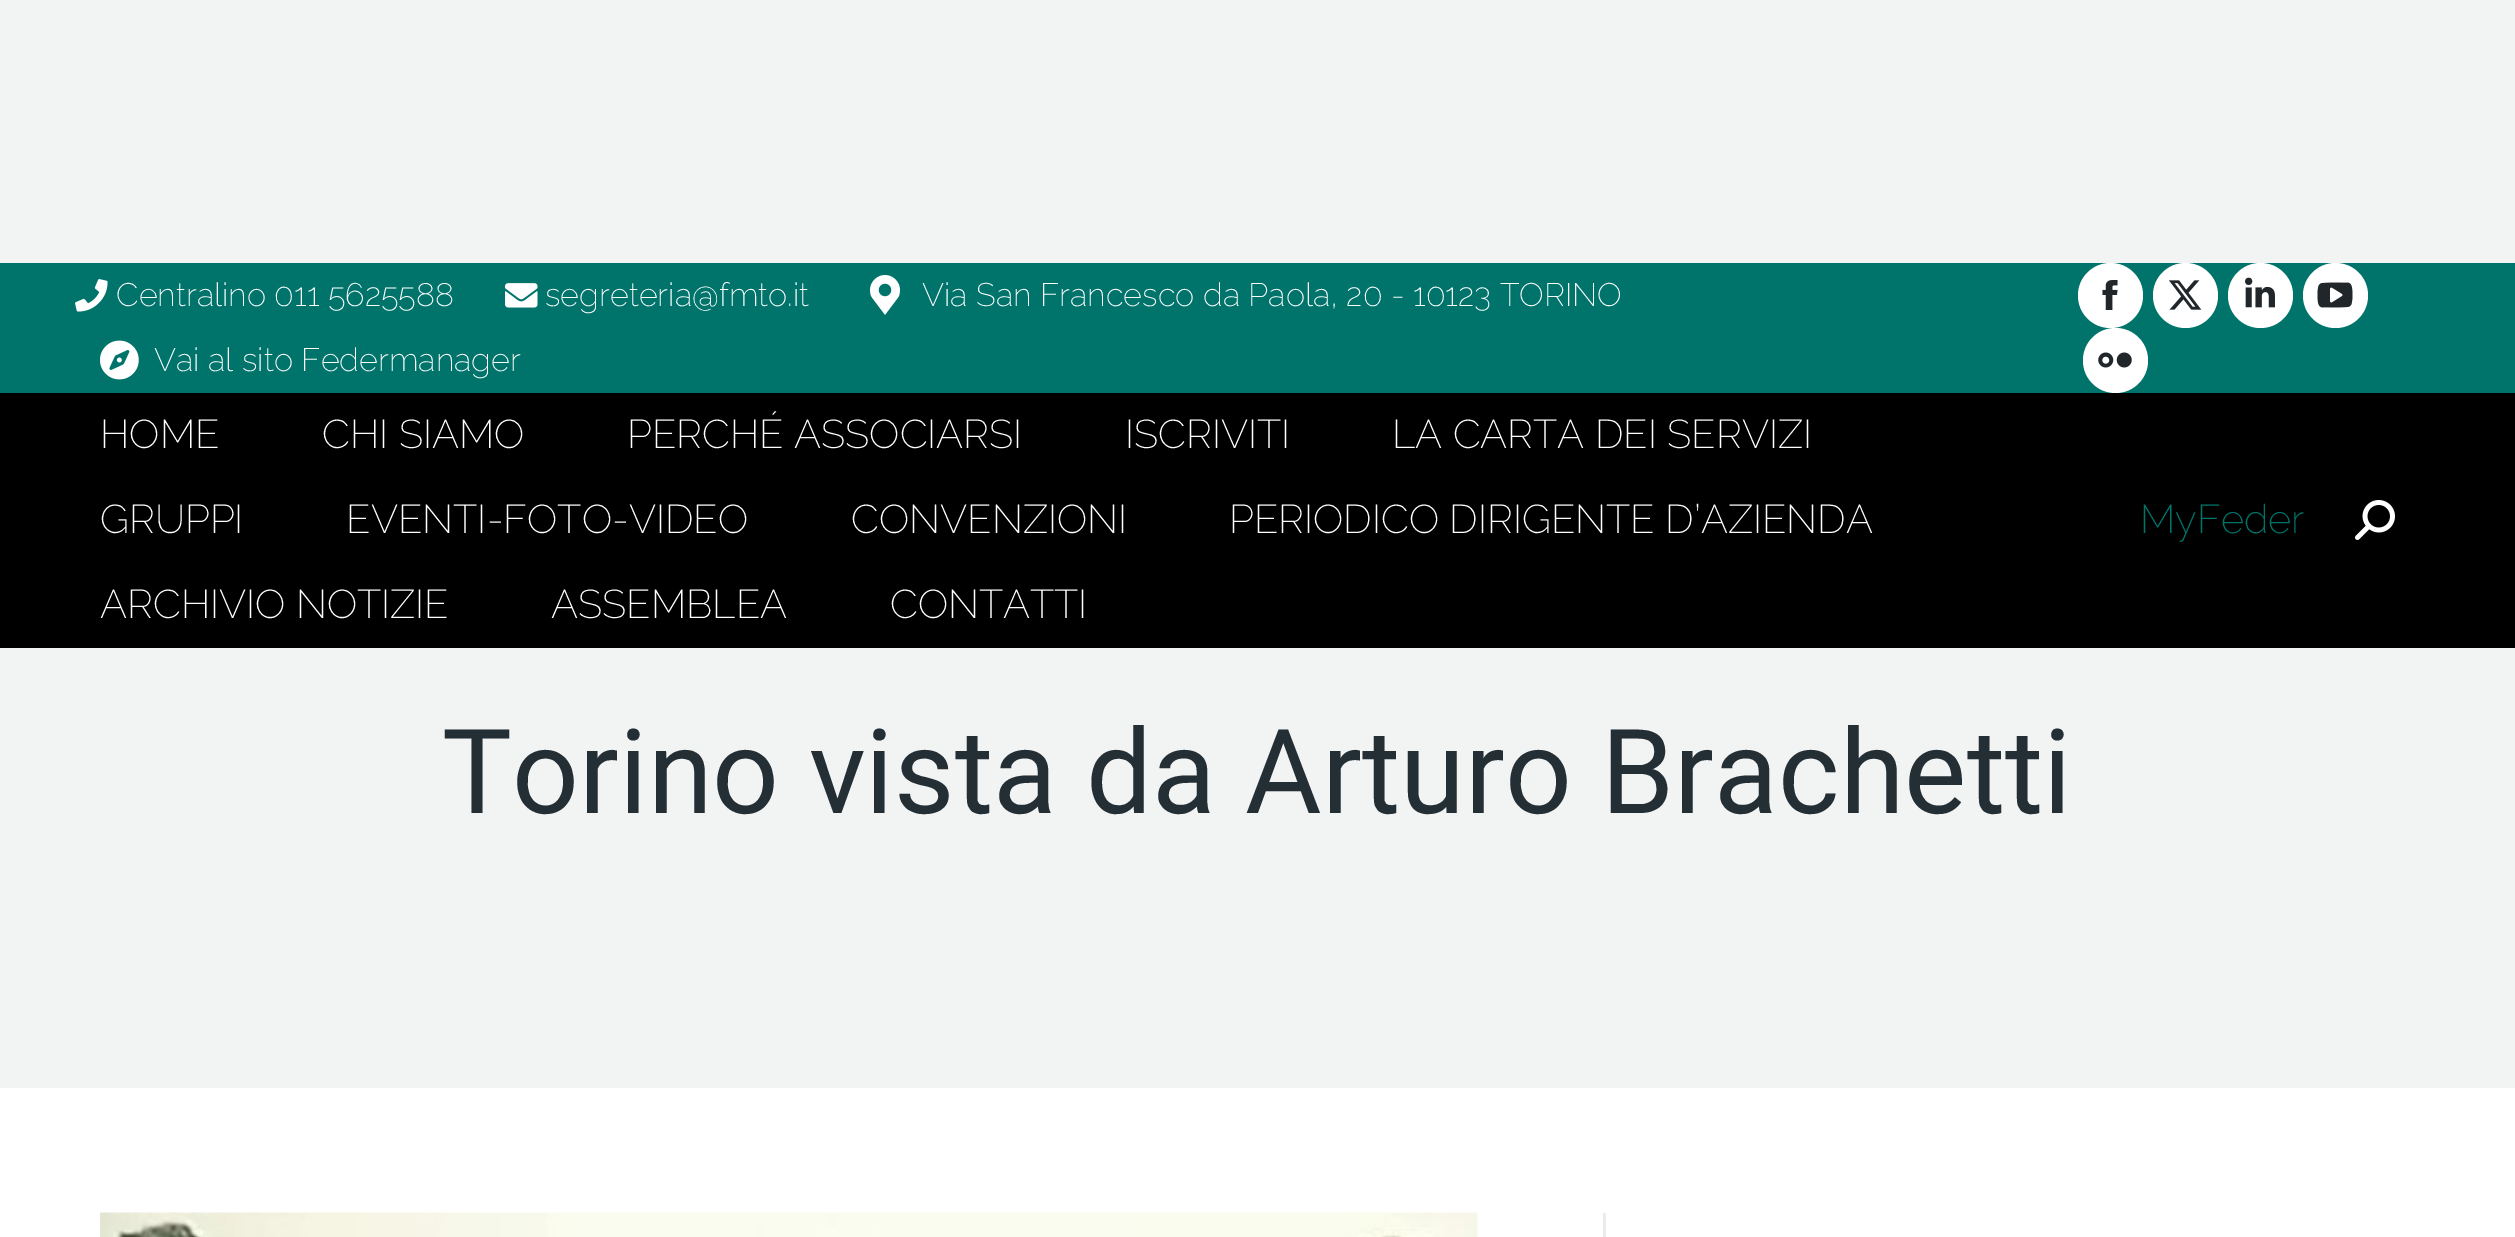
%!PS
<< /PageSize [2515 1237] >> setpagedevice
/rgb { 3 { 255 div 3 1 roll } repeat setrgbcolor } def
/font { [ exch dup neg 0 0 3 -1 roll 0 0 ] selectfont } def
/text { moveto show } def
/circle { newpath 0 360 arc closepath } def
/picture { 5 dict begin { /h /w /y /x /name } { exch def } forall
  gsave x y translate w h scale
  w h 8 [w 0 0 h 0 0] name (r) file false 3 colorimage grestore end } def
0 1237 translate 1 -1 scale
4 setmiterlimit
242 243 243 rgb
0 0 2515 1237 rectfill
255 255 255 rgb
0 1088 2515 149 rectfill
0 0 0 rgb
0 393 2515 255 rectfill
0 116 107 rgb
0 263 2515 130 rectfill
(img_01.rgb) 75 279 33 33 picture
(img_02.rgb) 505 283 33 25 picture
(img_03.rgb) 870 275 30 40 picture
(img_04.rgb) 100 340 39 40 picture
255 255 255 rgb
2110.5 295.5 32.5 circle fill
(img_05.rgb) 2102 280 16 30 picture
2185.5 295.5 32.5 circle fill
(img_06.rgb) 2169 280 33 30 picture
2260.5 295.5 32.5 circle fill
(img_07.rgb) 2245 277 30 31 picture
2335.5 295.5 32.5 circle fill
(img_08.rgb) 2317 282 36 26 picture
2115.5 360.5 32.5 circle fill
(img_09.rgb) 2098 352 34 16 picture
(img_10.rgb) 2355 500 40 40 picture
(img_11.rgb) 100 1212 1378 25 picture
235 235 235 rgb
1603 1213 3 24 rectfill
/Raleway-ExtraLight 32.5 font
255 255 255 rgb
(Centralino 011 5625588) 116 306 text
(segreteria@fmto.it) 545 306 text
(Via San Francesco da Paola, 20 - 10123 TORINO) 922 306 text
(Vai al sito Federmanager) 154 371 text
/Raleway-ExtraLight 40 font
(HOME) 100 448 text
(CHI SIAMO) 322 448 text
(PERCHÉ ASSOCIARSI) 627 448 text
(ISCRIVITI) 1125 448 text
(LA CARTA DEI SERVIZI) 1392 448 text
(GRUPPI) 100 533 text
(EVENTI-FOTO-VIDEO) 346 533 text
(CONVENZIONI) 851 533 text
(PERIODICO DIRIGENTE D’AZIENDA) 1229 533 text
(ARCHIVIO NOTIZIE) 100 618 text
(ASSEMBLEA) 551 618 text
(CONTATTI) 890 618 text
0 116 107 rgb
(MyFeder) 2140 533 text
/Roboto-Regular 117.5 font
36 46 53 rgb
(Torino vista da Arturo Brachetti) 442 813 text
showpage
